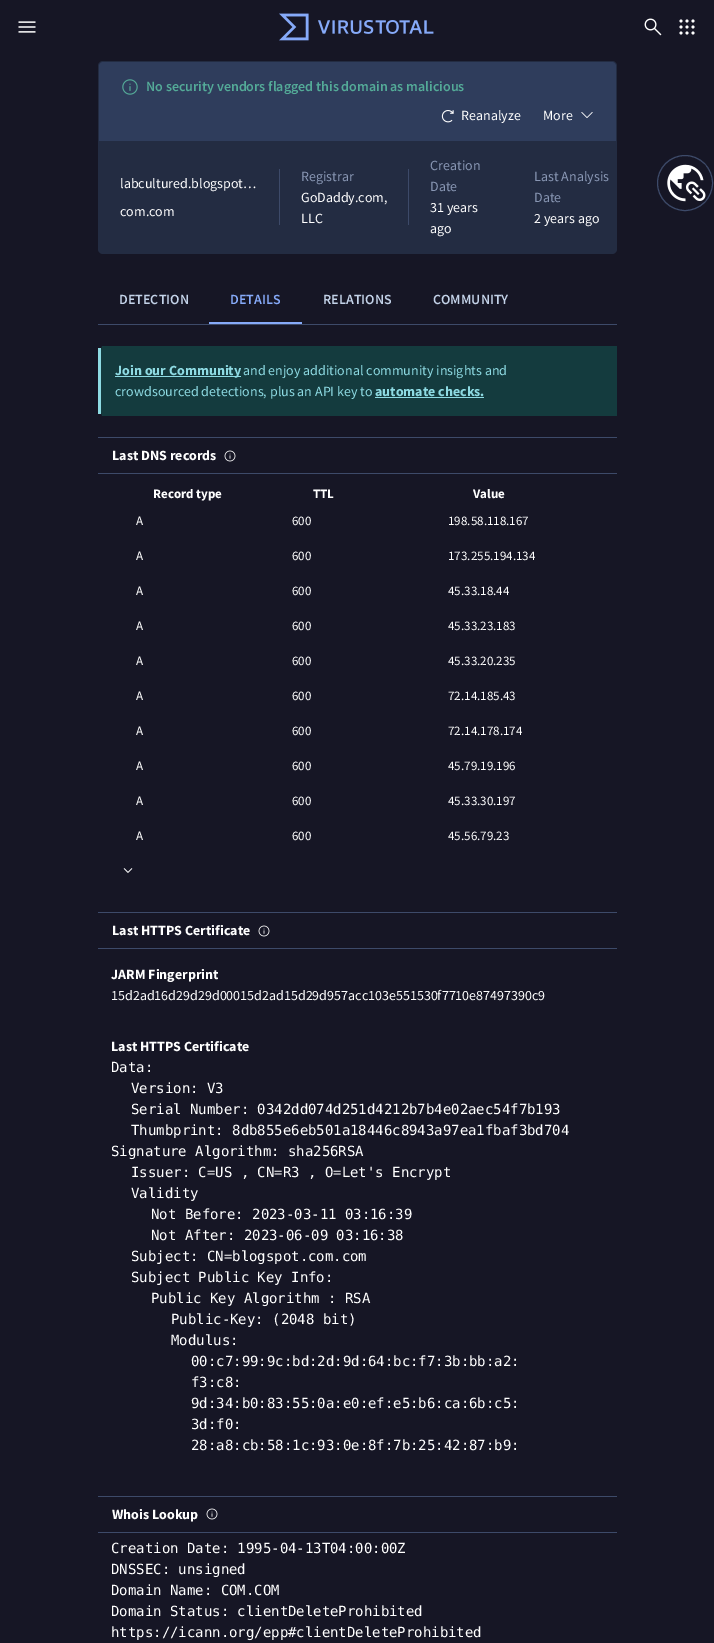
%!PS
<< /PageSize [714 1643] >> setpagedevice
/rgb { 3 { 255 div 3 1 roll } repeat setrgbcolor } def
/font { [ exch dup neg 0 0 3 -1 roll 0 0 ] selectfont } def
/text { moveto show } def
/circle { newpath 0 360 arc closepath } def
/roundrect { 5 dict begin { /r /h /w /y /x } { exch def } forall
  x r add y moveto x w add y 2 copy h add r arct x w add y h add x 1 index r arct
  x y h add x y r arct x y 2 copy exch w add exch r arct closepath end } def
/picture { 5 dict begin { /h /w /y /x /name } { exch def } forall
  gsave x y translate w h scale
  w h 8 [w 0 0 h 0 0] name (r) file false 3 colorimage grestore end } def
0 1643 translate 1 -1 scale
4 setmiterlimit
22 22 37 rgb
0 0 714 1643 rectfill
(img_01.rgb) 18 21 18 12 picture
(img_02.rgb) 279 13 155 28 picture
(img_03.rgb) 644 18 18 18 picture
(img_04.rgb) 679 19 16 16 picture
35 44 66 rgb
98 61 519 193 5 roundrect fill
47 61 92 rgb
103 62 moveto 509 0 rlineto 2 0 4 2 4 4 rcurveto 0 75 rlineto -517 0 rlineto 0 -75 rlineto 0 -2 2 -4 4 -4 rcurveto closepath fill
(img_05.rgb) 122 79 16 16 picture
(img_06.rgb) 441 110 13 13 picture
(img_07.rgb) 581 112 12 6 picture
61 74 105 rgb
279 169 1 56 rectfill
408 169 1 56 rectfill
685 183 27.5 circle stroke
(img_08.rgb) 667 164 39 38 picture
98 324 519 1 rectfill
134 170 249 rgb
209 322 93 2 rectfill
20 59 62 rgb
102 346 moveto 515 0 rlineto 0 70 rlineto -515 0 rlineto -1 -4 rlineto 0 -62 rlineto closepath fill
142 219 227 rgb
98 348 3 66 rectfill
115 376 126 1 rectfill
375 397 109 1 rectfill
61 74 105 rgb
98 437 519 1 rectfill
98 473 519 1 rectfill
(img_09.rgb) 224 450 12 12 picture
(img_10.rgb) 123 868 10 5 picture
98 912 519 1 rectfill
98 948 519 1 rectfill
(img_09.rgb) 258 925 12 12 picture
98 1496 519 1 rectfill
98 1532 519 1 rectfill
(img_09.rgb) 206 1508 12 12 picture
/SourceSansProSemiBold-SemiBold 14 font
84 171 152 rgb
(No security vendors flagged this domain as malicious) 146 91 text
/SourceSansPro-Regular 14 font
255 255 255 rgb
(Reanalyze) 461 120 text
(More) 543 120 text
(labcultured.blogspot…) 120 188 text
(com.com) 120 216 text
137 151 180 rgb
(Registrar) 301 181 text
255 255 255 rgb
(GoDaddy.com,) 301 202 text
(LLC) 301 223 text
137 151 180 rgb
(Creation) 430 170 text
(Date) 430 191 text
255 255 255 rgb
(31 years) 430 212 text
(ago) 430 233 text
137 151 180 rgb
(Last Analysis) 534 181 text
(Date) 534 202 text
255 255 255 rgb
(2 years ago) 534 223 text
/SourceSansProSemiBold-SemiBold 14 font
195 210 232 rgb
(DETECTION) 119 304 text
134 170 249 rgb
(DETAILS) 230 304 text
195 210 232 rgb
(RELATIONS) 323 304 text
(COMMUNITY) 433 304 text
/SourceSansPro-Bold 14 font
142 219 227 rgb
(Join our Community) 115 375 text
/SourceSansPro-Regular 14 font
(and enjoy additional community insights and) 243 375 text
(crowdsourced detections, plus an API key to) 115 396 text
/SourceSansPro-Bold 14 font
(automate checks.) 375 396 text
255 255 255 rgb
(Last DNS records) 112 460 text
/SourceSansPro-Bold 13 font
(Record type) 153 498 text
(TTL) 313 498 text
(Value) 473 498 text
/SourceSansPro-Regular 13 font
(A) 136 525 text
(600) 292 525 text
(198.58.118.167) 448 525 text
(A) 136 560 text
(600) 292 560 text
(173.255.194.134) 448 560 text
(A) 136 595 text
(600) 292 595 text
(45.33.18.44) 448 595 text
(A) 136 630 text
(600) 292 630 text
(45.33.23.183) 448 630 text
(A) 136 665 text
(600) 292 665 text
(45.33.20.235) 448 665 text
(A) 136 700 text
(600) 292 700 text
(72.14.185.43) 448 700 text
(A) 136 735 text
(600) 292 735 text
(72.14.178.174) 448 735 text
(A) 136 770 text
(600) 292 770 text
(45.79.19.196) 448 770 text
(A) 136 805 text
(600) 292 805 text
(45.33.30.197) 448 805 text
(A) 136 840 text
(600) 292 840 text
(45.56.79.23) 448 840 text
/SourceSansPro-Bold 14 font
(Last HTTPS Certificate) 112 935 text
(JARM Fingerprint) 111 979 text
/SourceSansPro-Regular 14 font
(15d2ad16d29d29d00015d2ad15d29d957acc103e551530f7710e87497390c9) 111 1000 text
/SourceSansPro-Bold 14 font
(Last HTTPS Certificate) 111 1051 text
/DejaVuSansMono-Regular 14 font
(Data:) 111 1072 text
(Version: V3) 131 1093 text
(Serial Number: 0342dd074d251d4212b7b4e02aec54f7b193) 131 1114 text
(Thumbprint: 8db855e6eb501a18446c8943a97ea1fbaf3bd704) 131 1135 text
(Signature Algorithm: sha256RSA) 111 1156 text
(Issuer: C=US , CN=R3 , O=Let's Encrypt) 131 1177 text
(Validity) 131 1198 text
(Not Before: 2023-03-11 03:16:39) 151 1219 text
(Not After: 2023-06-09 03:16:38) 151 1240 text
(Subject: CN=blogspot.com.com) 131 1261 text
(Subject Public Key Info:) 131 1282 text
(Public Key Algorithm : RSA) 151 1303 text
(Public-Key: \(2048 bit\)) 171 1324 text
(Modulus:) 171 1345 text
(00:c7:99:9c:bd:2d:9d:64:bc:f7:3b:bb:a2:) 191 1366 text
(f3:c8:) 191 1387 text
(9d:34:b0:83:55:0a:e0:ef:e5:b6:ca:6b:c5:) 191 1408 text
(3d:f0:) 191 1429 text
(28:a8:cb:58:1c:93:0e:8f:7b:25:42:87:b9:) 191 1450 text
/SourceSansPro-Bold 14 font
(Whois Lookup) 112 1519 text
/DejaVuSansMono-Regular 14 font
(Creation Date: 1995-04-13T04:00:00Z) 111 1553 text
(DNSSEC: unsigned) 111 1574 text
(Domain Name: COM.COM) 111 1595 text
(Domain Status: clientDeleteProhibited) 111 1616 text
(https://icann.org/epp#clientDeleteProhibited) 111 1637 text
showpage
